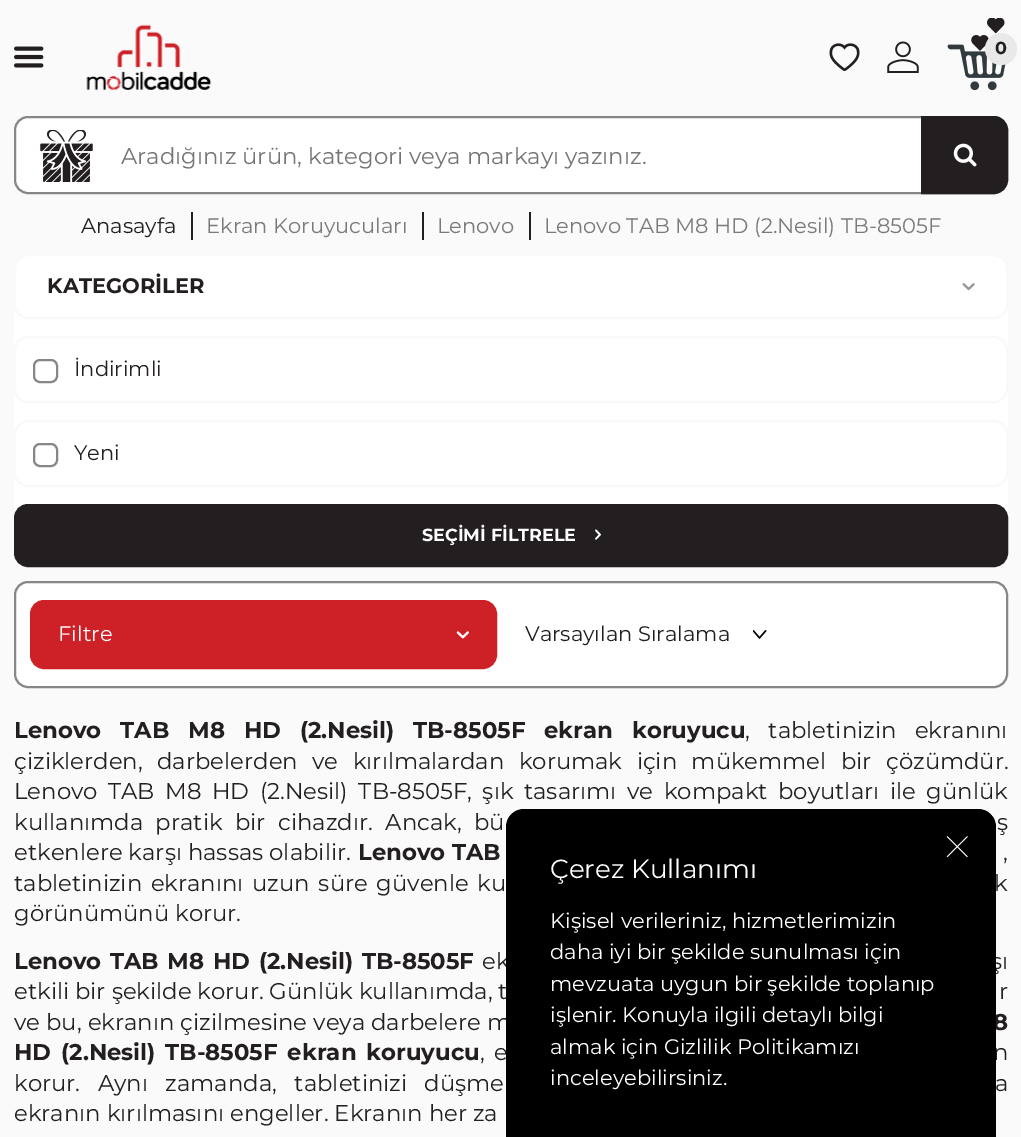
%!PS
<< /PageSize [1021 1137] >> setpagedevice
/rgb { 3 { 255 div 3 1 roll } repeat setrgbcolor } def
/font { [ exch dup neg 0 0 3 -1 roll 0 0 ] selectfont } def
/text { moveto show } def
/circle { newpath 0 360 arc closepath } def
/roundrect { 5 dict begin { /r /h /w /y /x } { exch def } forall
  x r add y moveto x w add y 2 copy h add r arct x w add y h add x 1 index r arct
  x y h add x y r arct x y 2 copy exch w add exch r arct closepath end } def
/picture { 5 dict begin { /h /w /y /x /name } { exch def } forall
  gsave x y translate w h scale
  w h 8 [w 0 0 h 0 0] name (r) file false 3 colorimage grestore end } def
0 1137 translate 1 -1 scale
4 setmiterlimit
250 250 250 rgb
0 0 1021 1137 rectfill
(img_01.rgb) 14 46 30 22 picture
(img_02.rgb) 86 24 125 66 picture
(img_03.rgb) 829 43 31 28 picture
(img_04.rgb) 887 41 32 32 picture
(img_05.rgb) 947 18 59 73 picture
233 233 233 rgb
1001 49 16 circle fill
255 255 255 rgb
15 117 992 76 13 roundrect gsave fill grestore
135 135 135 rgb
2 setlinewidth
stroke
(img_06.rgb) 40 130 53 52 picture
35 31 32 rgb
922 117 moveto 72 0 rlineto 7 0 13 6 13 13 rcurveto 0 50 rlineto 0 7 -6 13 -13 13 rcurveto -72 0 rlineto closepath gsave fill grestore
stroke
(img_07.rgb) 953 143 24 24 picture
191 212 2 28 rectfill
422 212 2 28 rectfill
529 212 2 28 rectfill
255 255 255 rgb
14 254 994 313 14 roundrect fill
249 249 249 rgb
15 255 992 63 13 roundrect stroke
(img_08.rgb) 962 283 13 8 picture
15 337 992 65 13 roundrect stroke
135 135 135 rgb
34 360 23 22 6 roundrect stroke
249 249 249 rgb
15 421 992 65 13 roundrect stroke
135 135 135 rgb
34 444 23 22 6 roundrect stroke
35 31 32 rgb
15 505 992 61 13 roundrect gsave fill grestore
stroke
(img_09.rgb) 595 529 6 11 picture
255 255 255 rgb
15 582 992 105 13 roundrect gsave fill grestore
135 135 135 rgb
stroke
205 33 39 rgb
31 601 465 67 13 roundrect gsave fill grestore
stroke
(img_10.rgb) 456 631 13 8 picture
(img_11.rgb) 753 630 14 9 picture
/Montserrat-Bold 17.5 font
35 31 32 rgb
(0) 995 54 text
/Montserrat-Regular 22.75 font
117 117 117 rgb
(Aradığınız ürün, kategori veya markayı yazınız.) 121 164 text
/Montserrat-Regular 21 font
35 31 32 rgb
(Anasayfa) 81 233 text
123 121 121 rgb
(Ekran Koruyucuları) 206 233 text
(Lenovo) 437 233 text
(Lenovo TAB M8 HD \(2.Nesil\) TB-8505F) 544 233 text
/Montserrat-Bold 21 font
35 31 32 rgb
(KATEGORİLER) 47 293 text
/Montserrat-Regular 21 font
(İndirimli) 74 376 text
(Yeni) 74 460 text
/Montserrat-Bold 17.5 font
255 255 255 rgb
(SEÇİMİ FİLTRELE) 422 541 text
/Montserrat-Regular 21 font
(Filtre) 58 641 text
35 31 32 rgb
(Varsayılan Sıralama) 525 641 text
/Montserrat-Bold 22.75 font
14 738 moveto 12.5 0 32 (Lenovo TAB M8 HD \(2.Nesil\) TB-8505F ekran koruyucu) widthshow
/Montserrat-Regular 22.75 font
745 738 moveto 12.5 0 32 (, tabletinizin ekranını) widthshow
14 769 moveto 8.5 0 32 (çiziklerden, darbelerden ve kırılmalardan korumak için mükemmel bir çözümdür.) widthshow
14 799 moveto 4.6 0 32 (Lenovo TAB M8 HD \(2.Nesil\) TB-8505F, şık tasarımı ve kompakt boyutları ile günlük) widthshow
14 830 moveto 6.5 0 32 (kullanımda pratik bir cihazdır. Ancak, bü) widthshow
997 830 moveto 6.5 0 32 (ş) widthshow
(etkenlere karşı hassas olabilir.) 14 860 text
/Montserrat-Bold 22.75 font
(Lenovo TAB) 358 860 text
/Montserrat-Regular 22.75 font
(,) 1003 860 text
14 891 moveto 2.75 0 32 (tabletinizin ekranını uzun süre güvenle ku) widthshow
994 891 moveto 2.75 0 32 (k) widthshow
(görünümünü korur.) 14 921 text
/Montserrat-Bold 22.75 font
14 969 moveto 2.25 0 32 (Lenovo TAB M8 HD \(2.Nesil\) TB-8505F) widthshow
/Montserrat-Regular 22.75 font
482 969 moveto 2.25 0 32 (ek) widthshow
991 969 moveto 2.25 0 32 (şı) widthshow
(etkili bir şekilde korur. Günlük kullanımda, t) 14 999 text
(r) 999 999 text
(ve bu, ekranın çizilmesine veya darbelere m) 14 1030 text
/Montserrat-Bold 22.75 font
(8) 993 1030 text
14 1060 moveto 3.5 0 32 (HD \(2.Nesil\) TB-8505F ekran koruyucu) widthshow
/Montserrat-Regular 22.75 font
480 1060 moveto 3.5 0 32 (, e) widthshow
993 1060 moveto 3.5 0 32 (n) widthshow
14 1091 moveto 11.5 0 32 (korur. Aynı zamanda, tabletinizi düşme) widthshow
995 1091 moveto 11.5 0 32 (a) widthshow
(ekranın kırılmasını engeller. Ekranın her za) 14 1121 text
0 0 0 rgb
524 809 moveto 454 0 rlineto 10 0 18 8 18 18 rcurveto 0 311 rlineto -490 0 rlineto 0 -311 rlineto 0 -10 8 -18 18 -18 rcurveto closepath fill
(img_12.rgb) 946 836 22 22 picture
/Montserrat-Regular 26.25 font
255 255 255 rgb
(Çerez Kullanımı) 550 878 text
/Montserrat-Regular 21 font
(Kişisel verileriniz, hizmetlerimizin) 550 928 text
(daha iyi bir şekilde sunulması için) 550 959 text
(mevzuata uygun bir şekilde toplanıp) 550 991 text
(işlenir. Konuyla ilgili detaylı bilgi) 550 1022 text
(almak için Gizlilik Politikamızı) 550 1054 text
(inceleyebilirsiniz.) 550 1085 text
showpage
